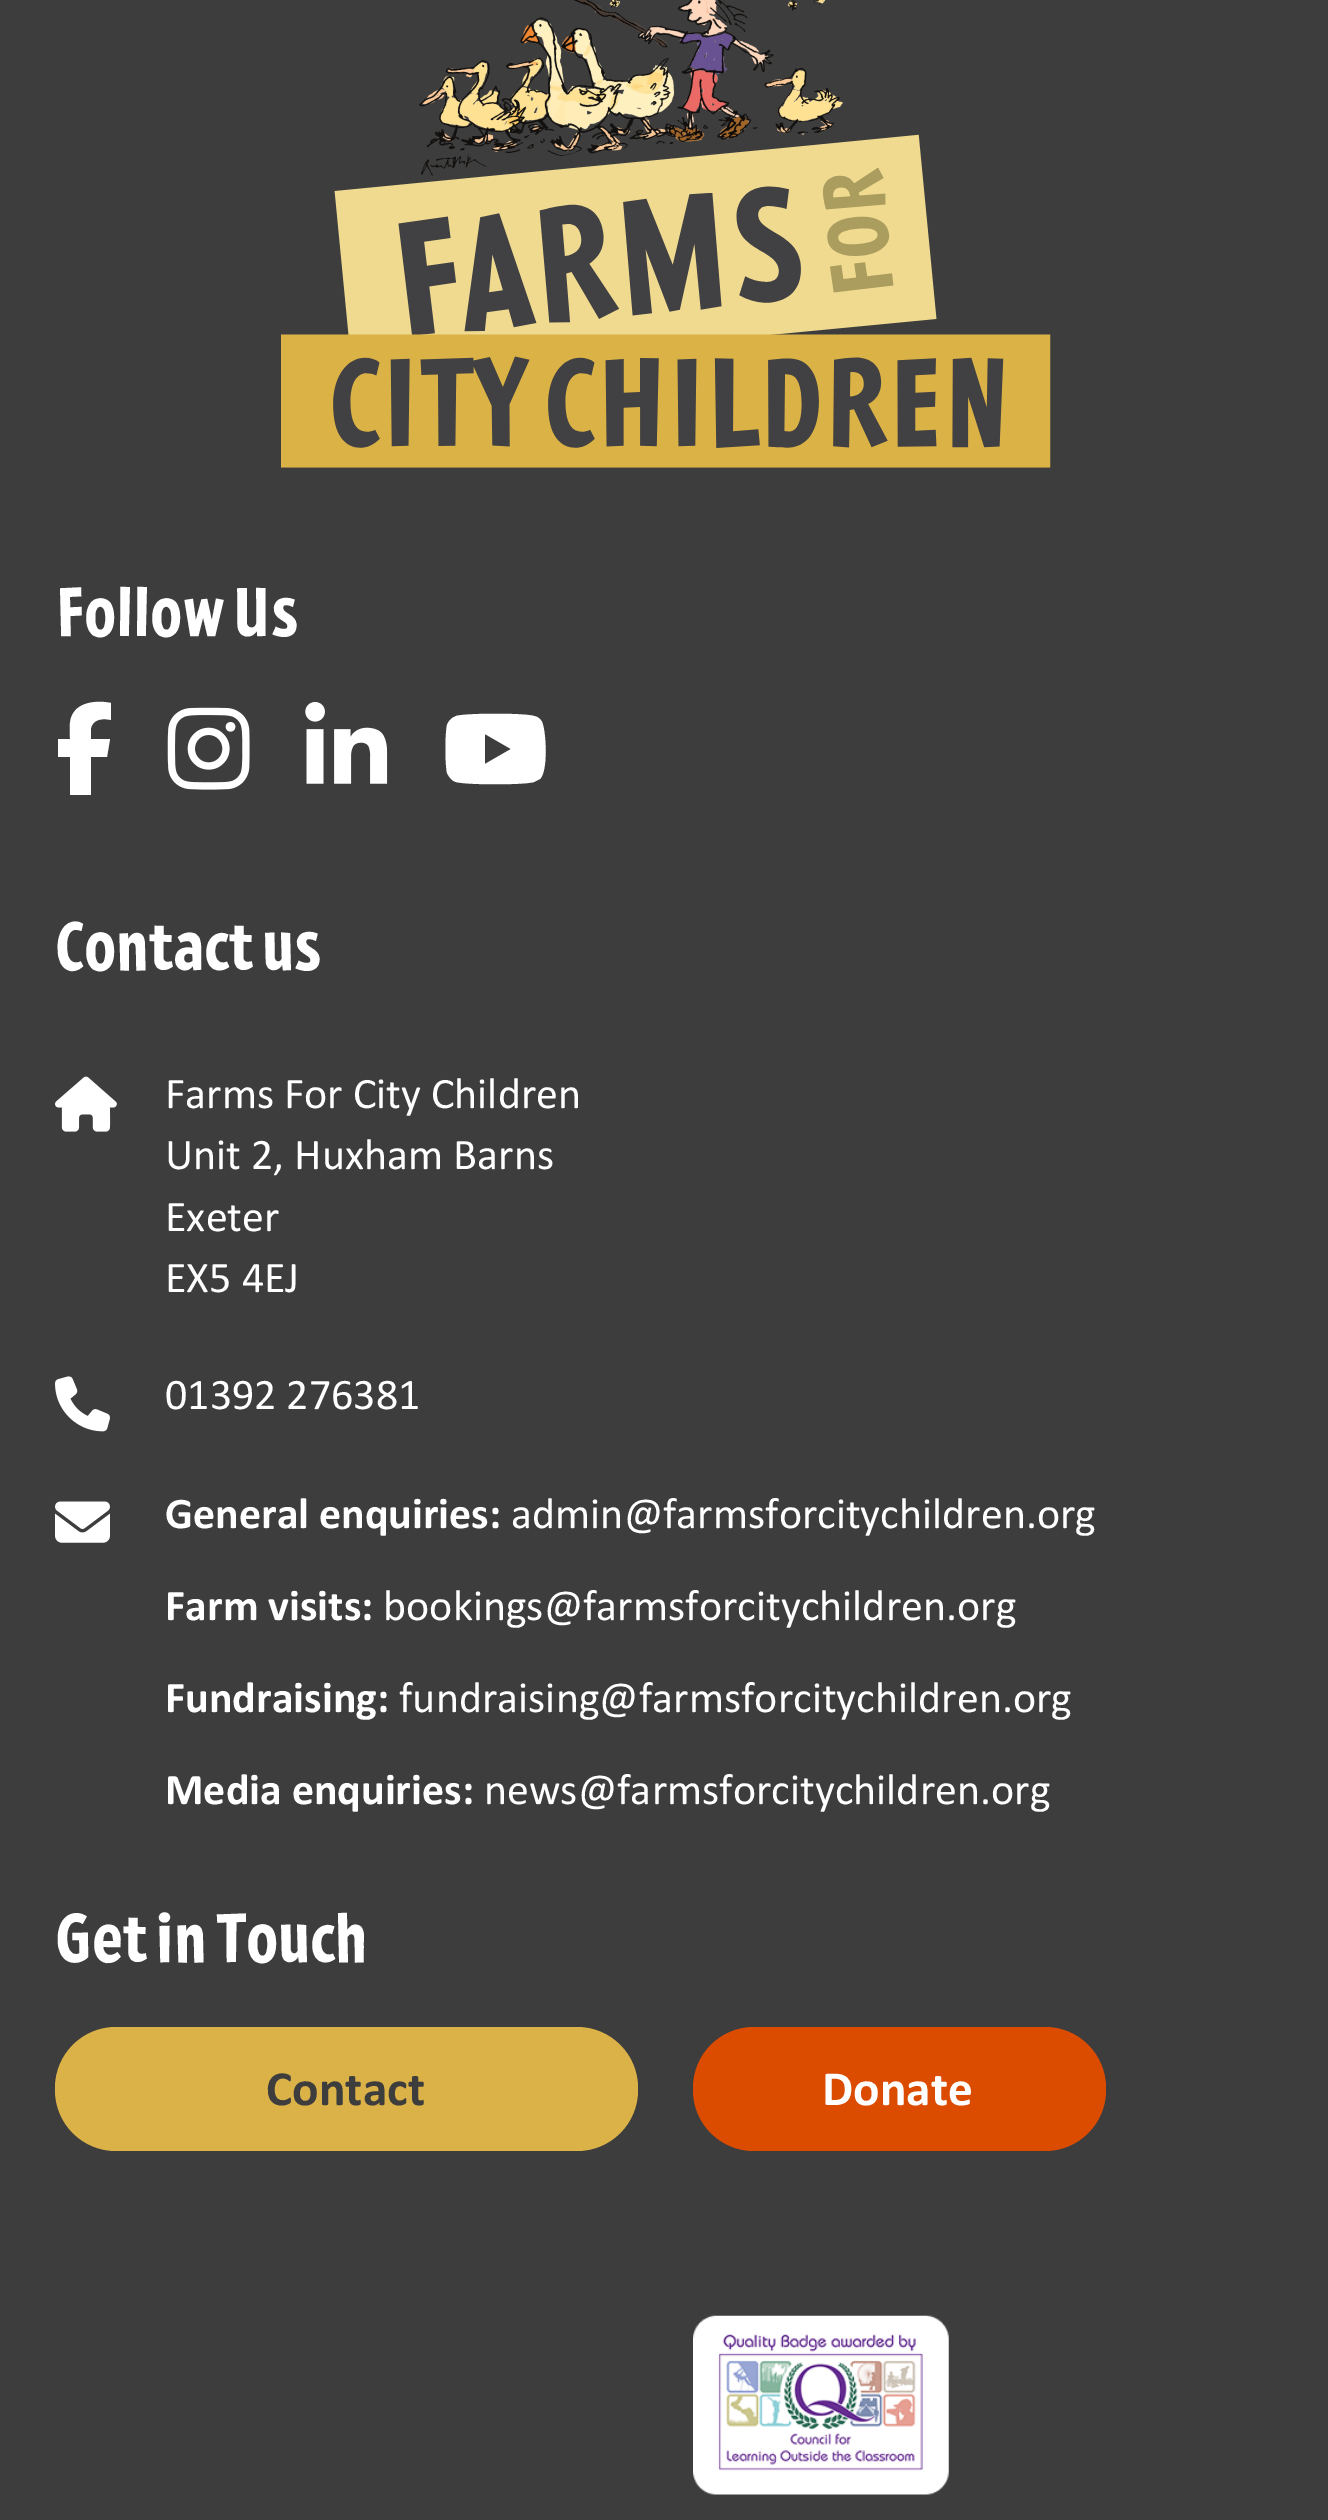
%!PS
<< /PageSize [1328 2520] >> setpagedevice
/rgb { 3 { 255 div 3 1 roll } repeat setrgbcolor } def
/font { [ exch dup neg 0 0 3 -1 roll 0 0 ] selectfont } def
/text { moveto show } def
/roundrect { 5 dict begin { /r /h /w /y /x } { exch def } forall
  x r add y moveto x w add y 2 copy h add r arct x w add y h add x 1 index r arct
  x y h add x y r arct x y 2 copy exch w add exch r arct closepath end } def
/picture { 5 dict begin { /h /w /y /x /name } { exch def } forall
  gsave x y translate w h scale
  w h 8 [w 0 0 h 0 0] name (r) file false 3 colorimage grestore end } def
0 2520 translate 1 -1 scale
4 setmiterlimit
61 61 61 rgb
0 0 1328 2520 rectfill
(img_01.rgb) 281 0 770 468 picture
255 255 255 rgb
70 757 moveto 0 38 rlineto 0 -38 rlineto 0 38 rlineto 21 0 rlineto 0 -38 rlineto 16 0 rlineto 3 -18 rlineto -19 0 rlineto 0 -11 rlineto 2 -9 12 -10 20 -8 rcurveto 0 -17 rlineto -15 -3 -35 -1 -40 15 rcurveto -2 7 -1 14 -1 21 rcurveto -12 0 rlineto 0 18 rlineto closepath fill
(img_02.rgb) 167 707 83 83 picture
(img_03.rgb) 305 701 83 83 picture
543 725 moveto -1 -5 -4 -8 -9 -9 rcurveto -9 -3 -68 -3 -78 0 rcurveto -4 2 rlineto -2 2 -4 4 -5 7 rcurveto -2 9 -2 39 0 48 rcurveto 2 4 5 8 9 9 rcurveto 11 3 68 3 78 0 rcurveto 2 -1 4 -2 6 -3 rcurveto 8 -8 6 -44 3 -54 rcurveto closepath 485 764 moveto 0 -30 rlineto 0 30 rlineto 0 -30 rlineto 26 15 rlineto closepath fill
(img_04.rgb) 55 1076 62 56 picture
(img_05.rgb) 55 1376 55 56 picture
(img_06.rgb) 55 1501 55 42 picture
219 178 71 rgb
55 2027 583 124 61 roundrect fill
219 75 0 rgb
693 2027 413 124 61 roundrect fill
(img_07.rgb) 693 2315 256 180 picture
/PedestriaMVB-Bold 68.75 font
255 255 255 rgb
(Follow Us) 55 636 text
(Contact us) 55 970 text
/Calibri-Regular 44 font
(Farms For City Children) 165 1108 text
(Unit 2, Huxham Barns) 165 1169 text
(Exeter) 165 1231 text
(EX5 4EJ) 165 1292 text
(01392 276381) 165 1409 text
/Calibri-Bold 44 font
(General enquiries:) 165 1528 text
/Calibri-Regular 44 font
(admin@farmsforcitychildren.org) 511 1528 text
/Calibri-Bold 44 font
(Farm visits:) 165 1620 text
/Calibri-Regular 44 font
(bookings@farmsforcitychildren.org) 383 1620 text
/Calibri-Bold 44 font
(Fundraising:) 165 1712 text
/Calibri-Regular 44 font
(fundraising@farmsforcitychildren.org) 399 1712 text
/Calibri-Bold 44 font
(Media enquiries:) 165 1804 text
/Calibri-Regular 44 font
(news@farmsforcitychildren.org) 484 1804 text
/PedestriaMVB-Bold 68.75 font
(Get in Touch) 55 1962 text
/Calibri-Bold 49.5 font
61 61 61 rgb
(Contact) 266 2105 text
255 255 255 rgb
(Donate) 822 2105 text
showpage
